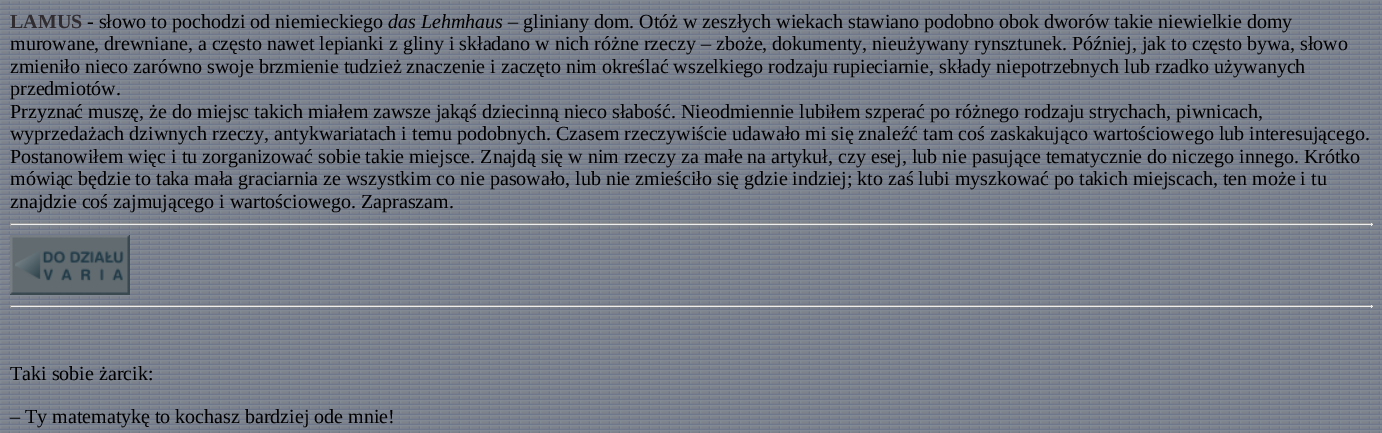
%!PS
<< /PageSize [1382 433] >> setpagedevice
/rgb { 3 { 255 div 3 1 roll } repeat setrgbcolor } def
/font { [ exch dup neg 0 0 3 -1 roll 0 0 ] selectfont } def
/text { moveto show } def
/picture { 5 dict begin { /h /w /y /x /name } { exch def } forall
  gsave x y translate w h scale
  w h 8 [w 0 0 h 0 0] name (r) file false 3 colorimage grestore end } def
0 433 translate 1 -1 scale
4 setmiterlimit
255 255 255 rgb
0 0 1382 433 rectfill
(img_01.rgb) 0 0 1382 433 picture
159 159 159 rgb
10 223 1363 1 rectfill
238 238 238 rgb
1371 223 1 3 rectfill
10 224 1363 1 rectfill
159 159 159 rgb
10 223 1 3 rectfill
(img_02.rgb) 10 235 120 60 picture
10 305 1363 1 rectfill
238 238 238 rgb
1371 305 1 3 rectfill
10 306 1363 1 rectfill
159 159 159 rgb
10 305 1 3 rectfill
/LiberationSerif-Bold 20 font
48 44 48 rgb
(LAMUS) 10 28 text
/LiberationSerif-Regular 20 font
0 0 0 rgb
(- słowo to pochodzi od niemieckiego) 87 28 text
/LiberationSerif-Italic 20 font
(das Lehmhaus) 388 28 text
/LiberationSerif-Regular 20 font
(– gliniany dom. Otóż w zeszłych wiekach stawiano podobno obok dworów takie niewielkie domy) 508 28 text
(murowane, drewniane, a często nawet lepianki z gliny i składano w nich różne rzeczy – zboże, dokumenty, nieużywany rynsztunek. Później, jak to często bywa, słowo) 10 50 text
(zmieniło nieco zarówno swoje brzmienie tudzież znaczenie i zaczęto nim określać wszelkiego rodzaju rupieciarnie, składy niepotrzebnych lub rzadko używanych) 10 73 text
(przedmiotów.) 10 95 text
(Przyznać muszę, że do miejsc takich miałem zawsze jakąś dziecinną nieco słabość. Nieodmiennie lubiłem szperać po różnego rodzaju strychach, piwnicach,) 10 118 text
(wyprzedażach dziwnych rzeczy, antykwariatach i temu podobnych. Czasem rzeczywiście udawało mi się znaleźć tam coś zaskakująco wartościowego lub interesującego.) 10 140 text
(Postanowiłem więc i tu zorganizować sobie takie miejsce. Znajdą się w nim rzeczy za małe na artykuł, czy esej, lub nie pasujące tematycznie do niczego innego. Krótko) 10 163 text
(mówiąc będzie to taka mała graciarnia ze wszystkim co nie pasowało, lub nie zmieściło się gdzie indziej; kto zaś lubi myszkować po takich miejscach, ten może i tu) 10 185 text
(znajdzie coś zajmującego i wartościowego. Zapraszam.) 10 208 text
(Taki sobie żarcik:) 10 380 text
(– Ty matematykę to kochasz bardziej ode mnie!) 10 423 text
showpage
